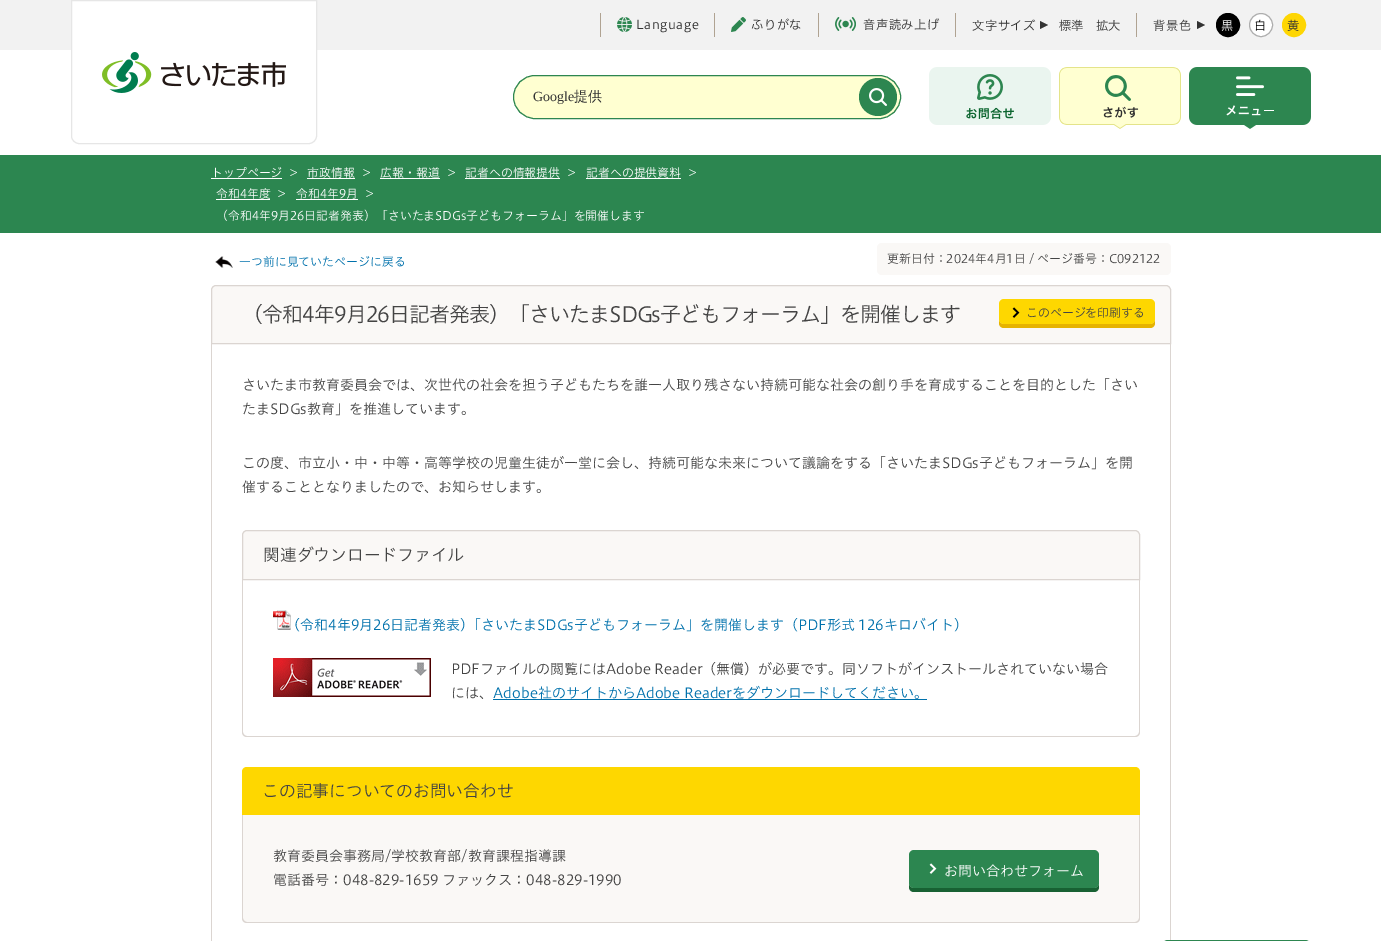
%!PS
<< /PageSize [1381 941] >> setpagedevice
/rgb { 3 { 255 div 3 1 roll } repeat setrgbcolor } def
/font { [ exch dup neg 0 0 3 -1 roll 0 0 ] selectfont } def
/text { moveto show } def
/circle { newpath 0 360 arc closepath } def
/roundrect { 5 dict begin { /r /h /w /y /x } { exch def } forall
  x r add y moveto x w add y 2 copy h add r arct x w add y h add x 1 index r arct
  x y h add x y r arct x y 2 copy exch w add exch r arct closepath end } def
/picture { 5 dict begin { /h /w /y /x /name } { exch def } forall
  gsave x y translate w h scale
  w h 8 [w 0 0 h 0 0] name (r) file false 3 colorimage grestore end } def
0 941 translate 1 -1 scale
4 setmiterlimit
255 255 255 rgb
0 0 1381 941 rectfill
242 242 242 rgb
0 0 1381 50 rectfill
255 255 255 rgb
71.5 0.5 moveto 245 0 rlineto 0 135.5 rlineto 0 4 -3.5 7.5 -7.5 7.5 rcurveto -230 0 rlineto -4 0 -7.5 -3.5 -7.5 -7.5 rcurveto closepath gsave fill grestore
230 230 230 rgb
stroke
(img_01.rgb) 102 52 184 41 picture
176 163 146 rgb
600 13 1 24 rectfill
(img_02.rgb) 617 17 15 15 picture
714 13 1 24 rectfill
(img_03.rgb) 731 17 15 15 picture
818 13 1 24 rectfill
(img_04.rgb) 835 17 21 14 picture
955 13 1 24 rectfill
51 51 51 rgb
1040 29 moveto 0 -8 rlineto 8 4 rlineto closepath fill
176 163 146 rgb
1136 13 1 24 rectfill
51 51 51 rgb
1197 29 moveto 0 -8 rlineto 8 4 rlineto closepath fill
0 0 0 rgb
1228 25 11.5 circle gsave fill grestore
stroke
255 255 255 rgb
1261 25 11.5 circle gsave fill grestore
174 174 174 rgb
stroke
254 214 3 rgb
1294 25 11.5 circle gsave fill grestore
stroke
255 255 209 rgb
513.5 75.5 387 43 21.5 roundrect gsave fill grestore
45 134 80 rgb
stroke
878 97 19 circle fill
(img_05.rgb) 869 88 18 18 picture
(img_06.rgb) 929 67 122 58 picture
(img_07.rgb) 1059 67 122 62 picture
(img_08.rgb) 1189 67 122 62 picture
44 134 80 rgb
0 155 1381 78 rectfill
255 255 255 rgb
211 178 71 1 rectfill
307 178 48 1 rectfill
380 178 60 1 rectfill
465 178 95 1 rectfill
586 178 95 1 rectfill
216 199 54 1 rectfill
296 199 62 1 rectfill
(img_09.rgb) 215 256 18 12 picture
250 248 246 rgb
877 243 294 32 5 roundrect fill
216 285.5 moveto 950 0 rlineto 2.5 0 4.5 2 4.5 4.5 rcurveto 0 53.5 rlineto -959 0 rlineto 0 -53.5 rlineto 0 -2.5 2 -4.5 4.5 -4.5 rcurveto closepath gsave fill grestore
219 213 209 rgb
stroke
230 179 0 rgb
999 319 moveto 0 4 rlineto 0 3 2 5 5 5 rcurveto 146 0 rlineto 3 0 5 -2 5 -5 rcurveto 0 -4 rlineto 0 3 -2 5 -5 5 rcurveto -146 0 rlineto -3 0 -5 -2 -5 -5 rcurveto closepath fill
254 215 0 rgb
999 299 156 25 5 roundrect fill
(img_10.rgb) 1012 307 8 11 picture
219 213 209 rgb
211 344 moveto 960 0 rlineto 0 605 rlineto 0 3 -2 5 -5 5 rcurveto -950 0 rlineto -3 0 -5 -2 -5 -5 rcurveto closepath 212 344 moveto 958 0 rlineto 0 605 rlineto 0 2 -2 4 -4 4 rcurveto -950 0 rlineto -2 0 -4 -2 -4 -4 rcurveto closepath eofill
250 248 246 rgb
247 530.5 moveto 888 0 rlineto 2.5 0 4.5 2 4.5 4.5 rcurveto 0 44.5 rlineto -897 0 rlineto 0 -44.5 rlineto 0 -2.5 2 -4.5 4.5 -4.5 rcurveto closepath gsave fill grestore
219 213 209 rgb
stroke
242 580 moveto 898 0 rlineto 0 152 rlineto 0 3 -2 5 -5 5 rcurveto -888 0 rlineto -3 0 -5 -2 -5 -5 rcurveto closepath 243 580 moveto 896 0 rlineto 0 152 rlineto 0 2 -2 4 -4 4 rcurveto -888 0 rlineto -2 0 -4 -2 -4 -4 rcurveto closepath eofill
(img_11.rgb) 273 610 18 20 picture
(img_12.rgb) 273 658 158 39 picture
0 113 172 rgb
493 699 434 1 rectfill
254 215 0 rgb
247 767 moveto 888 0 rlineto 3 0 5 2 5 5 rcurveto 0 43 rlineto -898 0 rlineto 0 -43 rlineto 0 -3 2 -5 5 -5 rcurveto closepath fill
250 248 246 rgb
242 815 moveto 898 0 rlineto 0 103 rlineto 0 3 -2 5 -5 5 rcurveto -888 0 rlineto -3 0 -5 -2 -5 -5 rcurveto closepath fill
219 213 209 rgb
242 815 moveto 898 0 rlineto 0 103 rlineto 0 3 -2 5 -5 5 rcurveto -888 0 rlineto -3 0 -5 -2 -5 -5 rcurveto closepath 243 815 moveto 896 0 rlineto 0 103 rlineto 0 2 -2 4 -4 4 rcurveto -888 0 rlineto -2 0 -4 -2 -4 -4 rcurveto closepath eofill
24 97 51 rgb
909 883 moveto 0 4 rlineto 0 3 2 5 5 5 rcurveto 180 0 rlineto 3 0 5 -2 5 -5 rcurveto 0 -4 rlineto 0 3 -2 5 -5 5 rcurveto -180 0 rlineto -3 0 -5 -2 -5 -5 rcurveto closepath fill
44 134 80 rgb
909 850 190 38 5 roundrect fill
(img_13.rgb) 929 863 8 11 picture
45 134 80 rgb
1168 940 moveto 137 0 rlineto 3.5 0 6 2.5 6 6 rcurveto 0 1 rlineto -149 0 rlineto 0 -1 rlineto 0 -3.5 2.5 -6 6 -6 rcurveto closepath fill
/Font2-Light 12.25 font
51 51 51 rgb
636 29 moveto 0.5 0 (Language) ashow
751 29 moveto 0.5 0 (ふりがな) ashow
863 29 moveto 0.5 0 (音声読み上げ) ashow
972 30 moveto 0.5 0 (文字サイズ) ashow
(標準) 1059 30 text
(拡大) 1096 30 text
1153 30 moveto 0.5 0 (背景色) ashow
255 255 255 rgb
(黒) 1221 30 text
0 0 0 rgb
(白) 1254 30 text
51 51 51 rgb
(黄) 1287 30 text
/LiberationSerif-Regular 14 font
(Google) 533 101 text
/WenQuanYiZenHei-Medium 14 font
(提供) 574 101 text
/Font-Light 11.9 font
255 255 255 rgb
(トップページ) 211 177 text
(>) 290 177 text
(市政情報) 307 177 text
(>) 363 177 text
(広報・報道) 380 177 text
(>) 448 177 text
(記者への情報提供) 465 177 text
(>) 568 177 text
(記者への提供資料) 586 177 text
(>) 689 177 text
(令和4年度) 216 198 text
(>) 278 198 text
(令和4年9月) 296 198 text
(>) 366 198 text
(（令和4年9月26日記者発表）「さいたまSDGs子どもフォーラム」を開催します) 216 220 text
0 113 172 rgb
(一つ前に見ていたページに戻る) 239 266 text
68 68 68 rgb
(更新日付：2024年4月1日 / ページ番号：C092122) 887 263 text
/Font-Light 21 font
242 322 moveto -1 0 (（令和4年9月26日記者発表）「さいたまSDGs子どもフォーラム」を開催します) ashow
/Font-Light 11.9 font
(このページを印刷する) 1026 317 text
/Font-Light 14 font
(さいたま市教育委員会では、次世代の社会を担う子どもたちを誰一人取り残さない持続可能な社会の創り手を育成することを目的とした「さい) 242 390 text
(たまSDGs教育」を推進しています。) 242 414 text
(この度、市立小・中・中等・高等学校の児童生徒が一堂に会し、持続可能な未来について議論をする「さいたまSDGs子どもフォーラム」を開) 242 468 text
(催することとなりましたので、お知らせします。) 242 492 text
/Font-Light 16.75 font
(関連ダウンロードファイル) 263 561 text
/Font-Light 14 font
0 113 172 rgb
(\(令和4年9月26日記者発表\)「さいたまSDGs子どもフォーラム」を開催します（PDF形式 126キロバイト）) 293 630 text
68 68 68 rgb
(PDFファイルの閲覧にはAdobe Reader（無償）が必要です。同ソフトがインストールされていない場合) 451 674 text
(には、) 451 698 text
0 113 172 rgb
(Adobe社のサイトからAdobe Readerをダウンロードしてください。) 493 698 text
/Font-Light 16.75 font
68 68 68 rgb
(この記事についてのお問い合わせ) 262 797 text
/Font-Light 14 font
(教育委員会事務局/学校教育部/教育課程指導課) 273 861 text
(電話番号：048-829-1659 ファックス：048-829-1990) 273 885 text
255 255 255 rgb
(お問い合わせフォーム) 944 876 text
showpage
